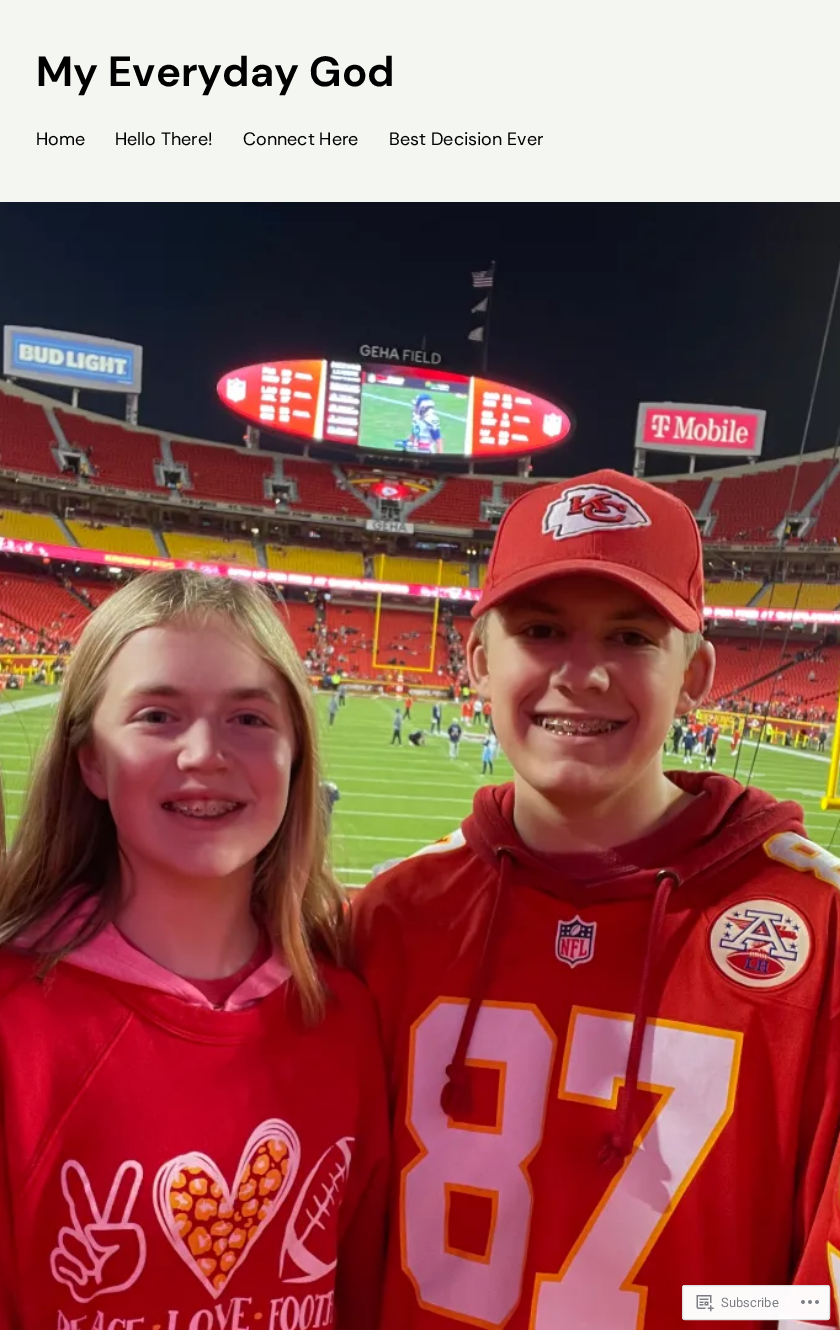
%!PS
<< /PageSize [840 1330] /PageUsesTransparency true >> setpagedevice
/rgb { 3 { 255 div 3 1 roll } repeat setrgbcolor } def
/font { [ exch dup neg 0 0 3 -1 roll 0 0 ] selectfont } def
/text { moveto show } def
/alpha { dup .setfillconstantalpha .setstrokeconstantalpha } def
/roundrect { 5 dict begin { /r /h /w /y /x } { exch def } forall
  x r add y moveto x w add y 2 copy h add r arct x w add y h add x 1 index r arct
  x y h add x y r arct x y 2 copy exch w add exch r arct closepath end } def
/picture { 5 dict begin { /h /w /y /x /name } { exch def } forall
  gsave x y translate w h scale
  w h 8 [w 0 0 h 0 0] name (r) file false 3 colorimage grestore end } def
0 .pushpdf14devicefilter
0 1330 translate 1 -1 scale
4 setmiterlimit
244 246 242 rgb
0 0 840 1330 rectfill
(img_01.rgb) 0 202 840 1128 picture
0.98 alpha
255 255 255 rgb
682 1285 148 35 3 roundrect fill
220 220 222 rgb
682.5 1285.5 147 34 2.5 roundrect stroke
1 alpha
(img_02.rgb) 696 1295 18 17 picture
(img_03.rgb) 801 1300 18 4 picture
/DMSans-Bold 42 font
0 0 0 rgb
(My Everyday God) 36 86 text
/DMSans-Regular 18 font
(Home) 36 145 text
(Hello There!) 115 145 text
(Connect Here) 243 145 text
(Best Decision Ever) 389 145 text
/Roboto-Regular 13 font
123 127 132 rgb
(Subscribe) 721 1307 text
.poppdf14devicefilter showpage
